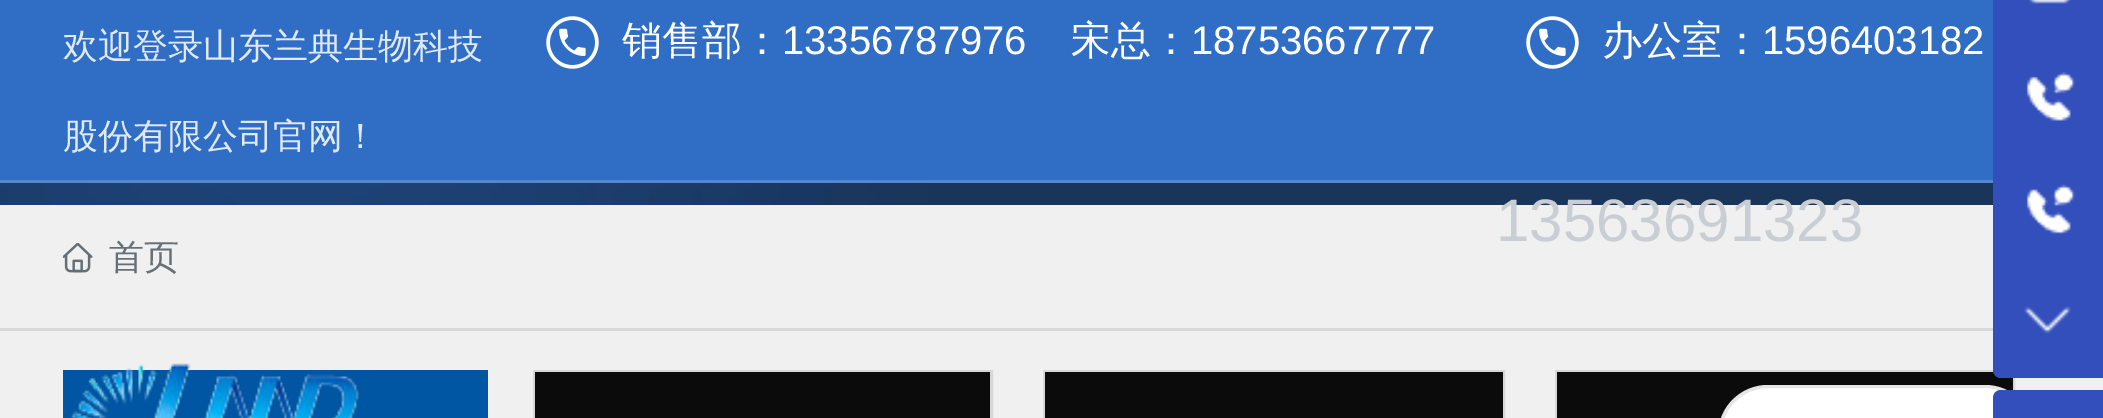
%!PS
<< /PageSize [2103 418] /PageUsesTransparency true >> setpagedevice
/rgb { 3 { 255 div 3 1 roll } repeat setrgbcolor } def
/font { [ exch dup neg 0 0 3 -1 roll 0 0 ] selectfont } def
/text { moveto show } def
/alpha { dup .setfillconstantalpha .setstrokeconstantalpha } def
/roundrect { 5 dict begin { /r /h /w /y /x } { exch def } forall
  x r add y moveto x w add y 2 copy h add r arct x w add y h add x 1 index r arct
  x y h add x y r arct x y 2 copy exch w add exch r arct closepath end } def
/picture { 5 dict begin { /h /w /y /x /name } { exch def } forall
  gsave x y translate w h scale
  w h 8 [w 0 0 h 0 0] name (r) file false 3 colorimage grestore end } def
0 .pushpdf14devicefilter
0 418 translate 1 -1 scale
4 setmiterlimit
240 240 240 rgb
0 0 2103 418 rectfill
48 109 197 rgb
0 0 1993 180 rectfill
85 135 207 rgb
0 180 1993 3 rectfill
(img_01.rgb) 546 16 53 53 picture
(img_01.rgb) 1526 16 53 53 picture
0 86 162 rgb
63 370 425 48 rectfill
(img_02.rgb) 70 363 289 55 picture
215 215 215 rgb
3 setlinewidth
1556.5 371.5 457 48 rectstroke
11 11 11 rgb
1557 372 456 46 rectfill
255 255 255 rgb
1718 385 317 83 50 roundrect fill
0.1 alpha
0 0 0 rgb
1719.5 386.5 314 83 48.5 roundrect stroke
1 alpha
(img_03.rgb) 0 183 1993 22 picture
50 79 187 rgb
2001 -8 moveto 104 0 rlineto 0 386 rlineto -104 0 rlineto -4.5 0 -8 -3.5 -8 -8 rcurveto 0 -370 rlineto 0 -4.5 3.5 -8 8 -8 rcurveto closepath fill
(img_04.rgb) 2029 0 42 4 picture
(img_05.rgb) 2026 72 50 49 picture
(img_06.rgb) 2026 184 50 50 picture
(img_07.rgb) 2024 306 47 28 picture
2001 390 moveto 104 0 rlineto 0 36 rlineto -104 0 rlineto -4.5 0 -8 -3.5 -8 -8 rcurveto 0 -20 rlineto 0 -4.5 3.5 -8 8 -8 rcurveto closepath fill
(img_08.rgb) 63 243 30 30 picture
216 216 216 rgb
0 328 1993 3 rectfill
215 215 215 rgb
534.5 371.5 457 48 rectstroke
11 11 11 rgb
535 372 455 46 rectfill
215 215 215 rgb
1044.5 371.5 459 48 rectstroke
11 11 11 rgb
1045 372 458 46 rectfill
/WenQuanYiZenHei-Medium 35 font
224 233 246 rgb
(欢迎登录山东兰典生物科技) 63 58 text
(股份有限公司官网！) 63 148 text
/WenQuanYiZenHei-Medium 40 font
255 255 255 rgb
(销售部：) 622 54 text
/LiberationSans-Regular 40 font
(13356787976) 782 54 text
/WenQuanYiZenHei-Medium 40 font
(宋总：) 1071 54 text
/LiberationSans-Regular 40 font
(18753667777) 1191 54 text
/WenQuanYiZenHei-Medium 40 font
(办公室：) 1602 54 text
/LiberationSans-Regular 40 font
(1596403182) 1762 54 text
/LiberationSans-Regular 60 font
201 206 212 rgb
(13563691323) 1496 241 text
/WenQuanYiZenHei-Medium 35 font
102 110 118 rgb
(首页) 109 269 text
.poppdf14devicefilter showpage
